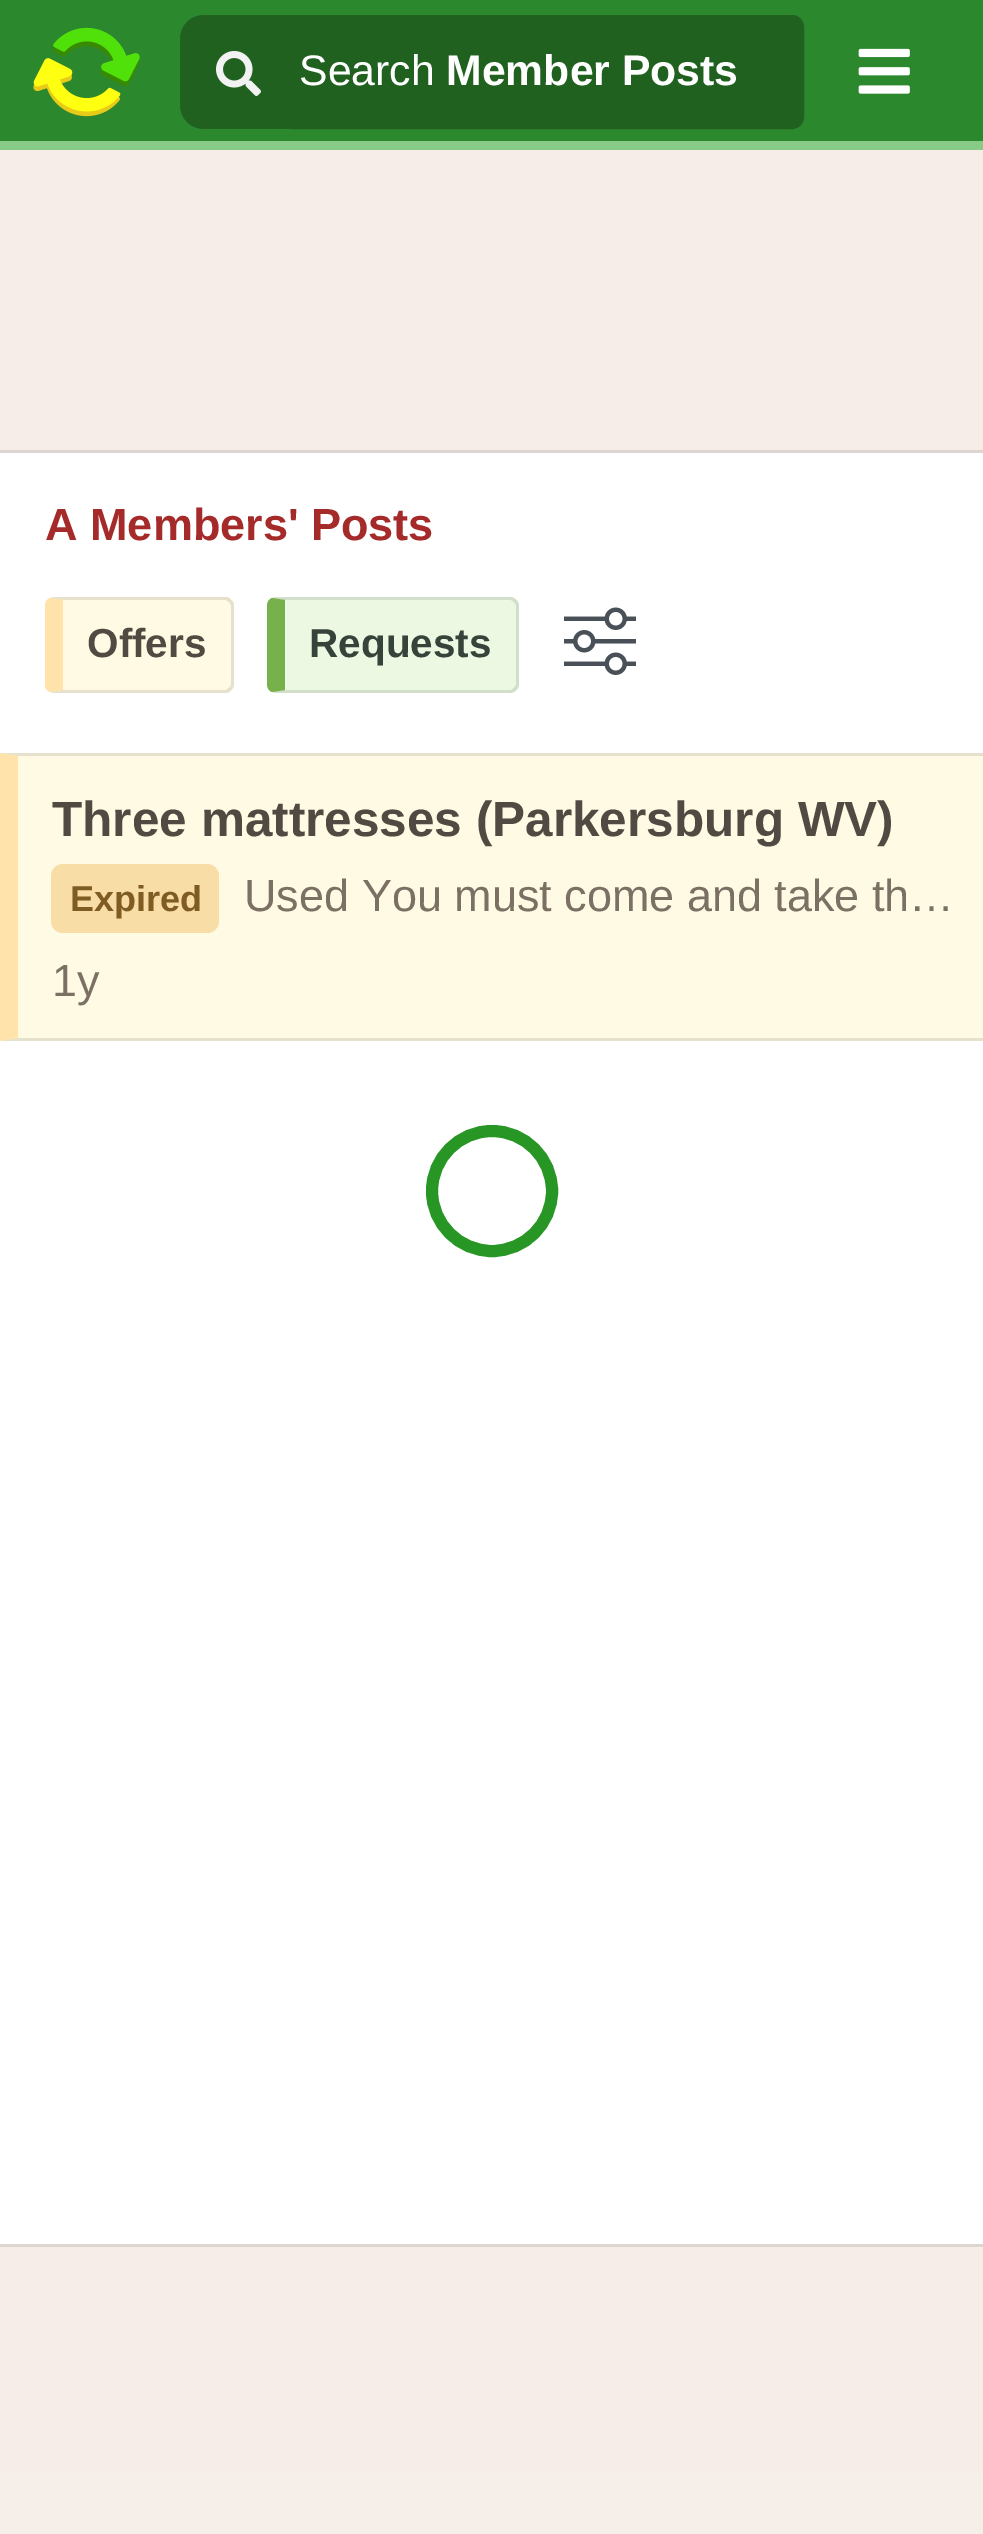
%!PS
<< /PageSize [983 2534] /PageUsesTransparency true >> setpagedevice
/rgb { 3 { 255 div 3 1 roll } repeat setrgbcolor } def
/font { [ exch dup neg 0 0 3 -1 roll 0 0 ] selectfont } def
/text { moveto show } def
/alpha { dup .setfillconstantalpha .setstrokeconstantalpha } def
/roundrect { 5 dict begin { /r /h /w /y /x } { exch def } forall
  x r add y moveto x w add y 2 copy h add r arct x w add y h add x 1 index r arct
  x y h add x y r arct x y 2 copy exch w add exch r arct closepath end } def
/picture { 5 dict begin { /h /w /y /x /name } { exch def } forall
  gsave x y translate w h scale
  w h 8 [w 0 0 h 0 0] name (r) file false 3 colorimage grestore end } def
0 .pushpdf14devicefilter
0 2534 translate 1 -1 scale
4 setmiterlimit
255 255 255 rgb
0 0 983 2534 rectfill
44 136 45 rgb
0 0 983 141 rectfill
135 203 135 rgb
0 141 983 9 rectfill
(img_01.rgb) 33 27 107 90 picture
32 97 32 rgb
204 15 moveto 90 0 rlineto 0 114 rlineto -90 0 rlineto -13.5 0 -24 -10.5 -24 -24 rcurveto 0 -66 rlineto 0 -13.5 10.5 -24 24 -24 rcurveto closepath fill
(img_02.rgb) 216 51 45 45 picture
292.5 16.5 moveto 499.5 0 rlineto 6 0 10.5 4.5 10.5 10.5 rcurveto 0 90 rlineto 0 6 -4.5 10.5 -10.5 10.5 rcurveto -499.5 0 rlineto closepath gsave fill grestore
3 setlinewidth
stroke
(img_03.rgb) 858 48 52 46 picture
246 237 233 rgb
0 150 983 300 rectfill
221 213 210 rgb
0 450 983 3 rectfill
255 250 227 rgb
45 597 189 96 9 roundrect fill
0.1 alpha
0 0 0 rgb
54 597 moveto -4 1 rlineto 13 2 rlineto 163 0 rlineto 3 2 rlineto 2 -2 rlineto -1 -2 -3 -3 -6 -3 rcurveto closepath fill
234 684 moveto 0 -78 rlineto 0 -2 -1 -5 -3 -6 rcurveto -2 2 rlineto 2 3 rlineto 0 80 rlineto -2 3 rlineto 2 2 rlineto 2 -1 3 -4 3 -6 rcurveto closepath fill
54 693 moveto 171 0 rlineto 3 0 5 -1 6 -3 rcurveto -2 -2 rlineto -3 2 rlineto -163 0 rlineto -13 2 rlineto closepath fill
1 alpha
255 227 171 rgb
63 600 moveto -13 -2 rlineto -3 1 -5 4 -5 8 rcurveto 0 78 rlineto 0 4 2 7 5 8 rcurveto 13 -2 rlineto closepath fill
236 248 226 rgb
267 597 252 96 9 roundrect fill
0.1 alpha
0 0 0 rgb
276 597 moveto -4 1 rlineto 13 2 rlineto 226 0 rlineto 3 2 rlineto 2 -2 rlineto -1 -2 -4 -3 -6 -3 rcurveto closepath fill
519 684 moveto 0 -78 rlineto 0 -2 -1 -5 -3 -6 rcurveto -2 2 rlineto 2 3 rlineto 0 80 rlineto -2 3 rlineto 2 2 rlineto 2 -1 3 -4 3 -6 rcurveto closepath fill
276 693 moveto 234 0 rlineto 2 0 5 -1 6 -3 rcurveto -2 -2 rlineto -3 2 rlineto -226 0 rlineto -13 2 rlineto closepath fill
1 alpha
119 177 76 rgb
285 600 moveto -13 -2 rlineto -3 1 -5 4 -5 8 rcurveto 0 78 rlineto 0 4 2 7 5 8 rcurveto 13 -2 rlineto closepath fill
(img_04.rgb) 564 607 72 68 picture
255 250 227 rgb
0 753 983 288 rectfill
230 225 204 rgb
0 753 moveto 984 0 rlineto 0 3 rlineto -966 0 rlineto closepath fill
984 1041 moveto -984 0 rlineto 18 -3 rlineto 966 0 rlineto closepath fill
255 227 171 rgb
0 1041 moveto 0 -288 rlineto 18 3 rlineto 0 282 rlineto closepath fill
248 221 167 rgb
51 864 168 69 12 roundrect fill
39 150 37 rgb
12 setlinewidth
1 setlinecap
492 1131 moveto 33 0 60 27 60 60 rcurveto 0 33 -27 60 -60 60 rcurveto -33 0 -60 -27 -60 -60 rcurveto 0 -33 27 -60 60 -60 rcurveto stroke
246 237 233 rgb
0 2247 983 225 rectfill
221 213 210 rgb
0 2244 983 3 rectfill
246 238 233 rgb
0 2472 983 62 rectfill
/LiberationSans-Regular 42.75 font
255 255 255 rgb
(Search) 299 85 text
/LiberationSans-Bold 42.75 font
(Member Posts) 446 85 text
/LiberationSans-Bold 45 font
165 42 42 rgb
(A Members' Posts) 45 540 text
/LiberationSans-Bold 40.5 font
81 74 66 rgb
(Offers) 87 657 text
54 67 58 rgb
(Requests) 309 657 text
/LiberationSans-Bold 49.5 font
81 74 66 rgb
(Three mattresses \(Parkersburg WV\)) 52 836 text
/LiberationSans-Bold 36 font
127 92 34 rgb
(Expired) 70 911 text
/LiberationSans-Regular 45 font
123 112 100 rgb
(Used You must come and take th…) 244 911 text
(1y) 52 996 text
.poppdf14devicefilter showpage
